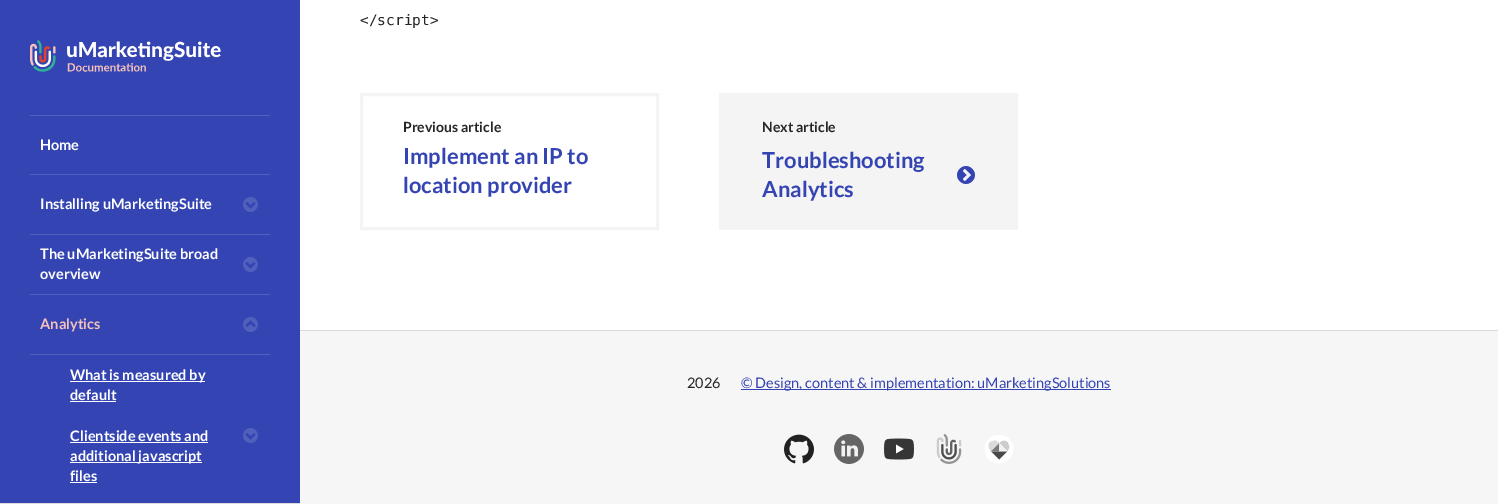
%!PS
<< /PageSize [1498 504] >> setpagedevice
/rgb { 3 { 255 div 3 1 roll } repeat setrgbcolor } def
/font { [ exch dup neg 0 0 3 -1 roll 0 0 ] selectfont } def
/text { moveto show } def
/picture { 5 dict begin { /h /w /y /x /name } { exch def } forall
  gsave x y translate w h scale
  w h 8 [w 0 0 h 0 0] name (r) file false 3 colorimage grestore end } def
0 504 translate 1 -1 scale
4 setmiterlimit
255 255 255 rgb
0 0 1498 504 rectfill
244 244 244 rgb
3 setlinewidth
361.5 94.5 296 134 rectstroke
719 93 299 137 rectfill
(img_01.rgb) 957 166 18 18 picture
52 68 178 rgb
0 0 300 503 rectfill
218 218 218 rgb
0 503 300 1 rectfill
(img_02.rgb) 30 40 191 32 picture
82 96 190 rgb
30 115 240 1 rectfill
30 174 240 1 rectfill
30 234 240 1 rectfill
(img_03.rgb) 243 197 15 15 picture
30 294 240 1 rectfill
(img_03.rgb) 243 257 15 15 picture
30 354 240 1 rectfill
(img_04.rgb) 243 317 15 15 picture
255 255 255 rgb
70 381 135 1 rectfill
70 401 46 1 rectfill
70 442 138 1 rectfill
70 462 132 1 rectfill
70 482 27 1 rectfill
(img_03.rgb) 243 428 15 15 picture
246 246 246 rgb
300 331 1198 173 rectfill
218 218 218 rgb
300 330 1198 1 rectfill
52 68 178 rgb
741 389 370 1 rectfill
(img_05.rgb) 784 434 30 30 picture
(img_06.rgb) 834 434 30 30 picture
(img_07.rgb) 884 438 30 22 picture
(img_08.rgb) 936 434 26 30 picture
(img_09.rgb) 984 435 30 29 picture
/DejaVuSansMono-Regular 14.5 font
38 38 38 rgb
(</script>) 360 25 text
/Lato-Bold 14 font
(Previous article) 403 132 text
/Lato-Bold 22 font
52 68 178 rgb
(Implement an IP to) 403 164 text
(location provider) 403 193 text
/Lato-Bold 14 font
38 38 38 rgb
(Next article) 762 132 text
/Lato-Bold 22 font
52 68 178 rgb
(Troubleshooting) 762 168 text
(Analytics) 762 197 text
/Lato-Bold 14.5 font
255 255 255 rgb
(Home) 40 150 text
(Installing uMarketingSuite) 40 209 text
(The uMarketingSuite broad) 40 259 text
(overview) 40 279 text
245 193 188 rgb
(Analytics) 40 329 text
255 255 255 rgb
(What is measured by) 70 380 text
(default) 70 400 text
(Clientside events and) 70 441 text
(additional javascript) 70 461 text
(files) 70 481 text
/Lato-Regular 14.5 font
38 38 38 rgb
(2026) 687 388 text
52 68 178 rgb
(© Design, content & implementation: uMarketingSolutions) 741 388 text
showpage
